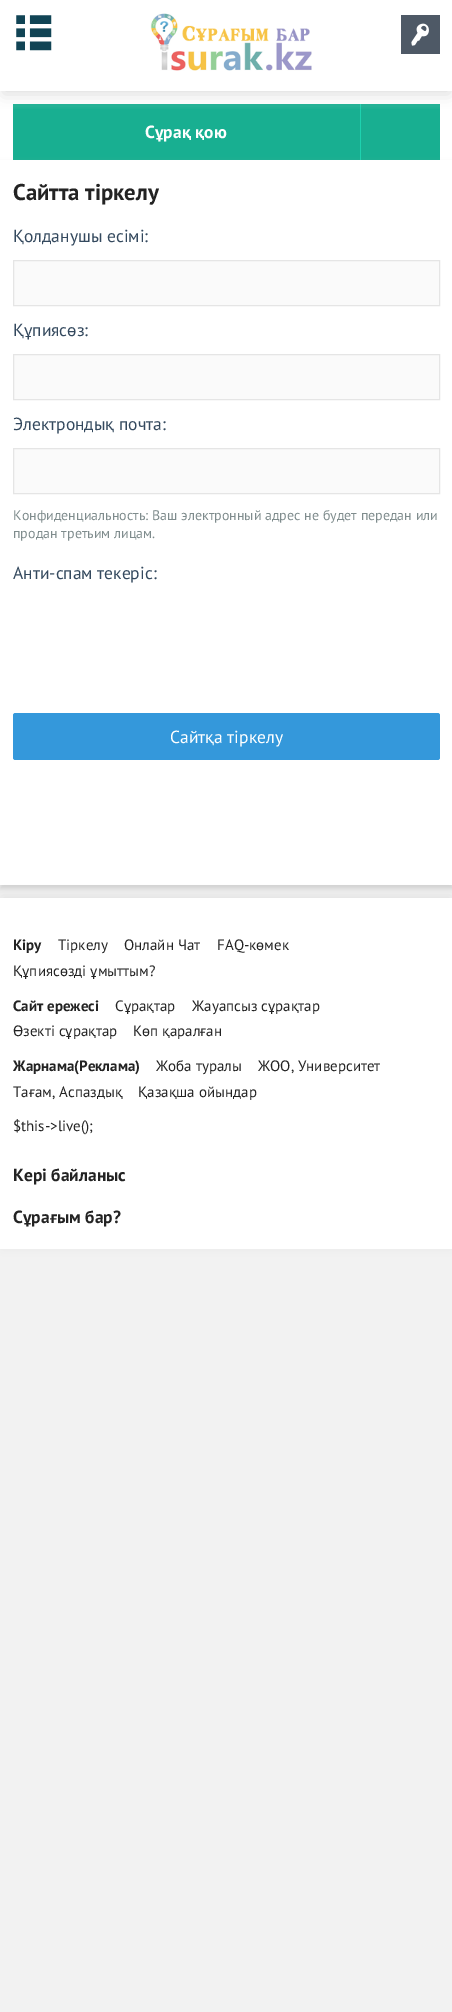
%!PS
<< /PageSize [452 2012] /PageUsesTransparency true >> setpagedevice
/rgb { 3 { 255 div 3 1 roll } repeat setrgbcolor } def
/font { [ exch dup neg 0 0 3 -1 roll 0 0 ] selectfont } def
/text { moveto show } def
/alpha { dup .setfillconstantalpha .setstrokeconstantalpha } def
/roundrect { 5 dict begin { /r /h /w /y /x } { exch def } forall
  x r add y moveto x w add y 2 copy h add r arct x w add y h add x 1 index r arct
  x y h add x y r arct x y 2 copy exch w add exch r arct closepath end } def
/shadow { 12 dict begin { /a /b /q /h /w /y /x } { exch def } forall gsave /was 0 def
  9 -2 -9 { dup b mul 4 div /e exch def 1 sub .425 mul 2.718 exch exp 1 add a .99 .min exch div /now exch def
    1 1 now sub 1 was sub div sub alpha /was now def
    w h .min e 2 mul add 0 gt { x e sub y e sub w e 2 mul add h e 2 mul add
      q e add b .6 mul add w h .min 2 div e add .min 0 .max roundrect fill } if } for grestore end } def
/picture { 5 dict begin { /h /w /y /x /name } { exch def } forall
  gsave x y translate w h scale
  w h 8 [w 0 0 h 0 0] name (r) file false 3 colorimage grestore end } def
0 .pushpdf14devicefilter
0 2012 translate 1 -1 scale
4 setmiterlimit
242 242 242 rgb
0 0 452 2012 rectfill
255 255 255 rgb
0 0 452 160 rectfill
24 175 145 rgb
13 104 347 56 rectfill
361 104 79 56 rectfill
29 210 175 rgb
360 104 1 56 rectfill
gsave
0 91 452 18 rectclip
221 221 221 rgb
3 8 447 86 0 7.5 1 shadow
grestore
(img_01.rgb) 16 15 36 36 picture
(img_02.rgb) 150 13 162 58 picture
78 89 102 rgb
401 15 39 39 rectfill
(img_03.rgb) 411 23 18 23 picture
174 174 174 rgb
0 164 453 725 0 3 0.5 shadow
255 255 255 rgb
0 160 452 725 rectfill
250 250 250 rgb
13.5 260.5 moveto 426 0 rlineto 0 45 rlineto -426 0 rlineto closepath gsave fill grestore
229 229 229 rgb
stroke
250 250 250 rgb
13.5 354.5 moveto 426 0 rlineto 0 45 rlineto -426 0 rlineto closepath gsave fill grestore
229 229 229 rgb
stroke
250 250 250 rgb
13.5 448.5 moveto 426 0 rlineto 0 45 rlineto -426 0 rlineto closepath gsave fill grestore
229 229 229 rgb
stroke
52 152 219 rgb
13 713 427 47 2.5 roundrect fill
221 221 221 rgb
3 898 447 346 0 6 1 shadow
255 255 255 rgb
0 898 452 351 rectfill
/PTSans-Bold 17.5 font
(Сұрақ қою) 145 138 text
/PTSans-Bold 22.75 font
35 35 35 rgb
(Сайтта тіркелу) 13 200 text
/PTSans-Regular 17.5 font
52 73 94 rgb
(Қолданушы есімі:) 13 242 text
(Құпиясөз:) 13 336 text
(Электрондық почта:) 13 430 text
/PTSans-Regular 14 font
127 140 141 rgb
(Конфиденциальность: Ваш электронный адрес не будет передан или) 13 520 text
(продан третьим лицам.) 13 538 text
/PTSans-Regular 17.5 font
52 73 94 rgb
(Анти-спам текеріс:) 13 579 text
255 255 255 rgb
(Сайтқа тіркелу) 170 743 text
/PTSans-Bold 15 font
35 35 35 rgb
(Кіру) 13 950 text
/PTSans-Regular 15 font
(Тіркелу) 58 950 text
(Онлайн Чат) 124 950 text
(FAQ-көмек) 217 950 text
(Құпиясөзді ұмыттым?) 13 976 text
/PTSans-Bold 15 font
(Сайт ережесі) 13 1011 text
/PTSans-Regular 15 font
(Сұрақтар) 115 1011 text
(Жауапсыз сұрақтар) 192 1011 text
(Өзекті сұрақтар) 13 1036 text
(Көп қаралған) 133 1036 text
/PTSans-Bold 15 font
(Жарнама\(Реклама\)) 13 1071 text
/PTSans-Regular 15 font
(Жоба туралы) 156 1071 text
(ЖОО, Университет) 258 1071 text
(Тағам, Аспаздық) 13 1097 text
(Қазақша ойындар) 138 1097 text
($this->live\(\);) 13 1131 text
/PTSans-Bold 17.5 font
(Кері байланыс) 13 1181 text
(Сұрағым бар?) 13 1223 text
.poppdf14devicefilter showpage
